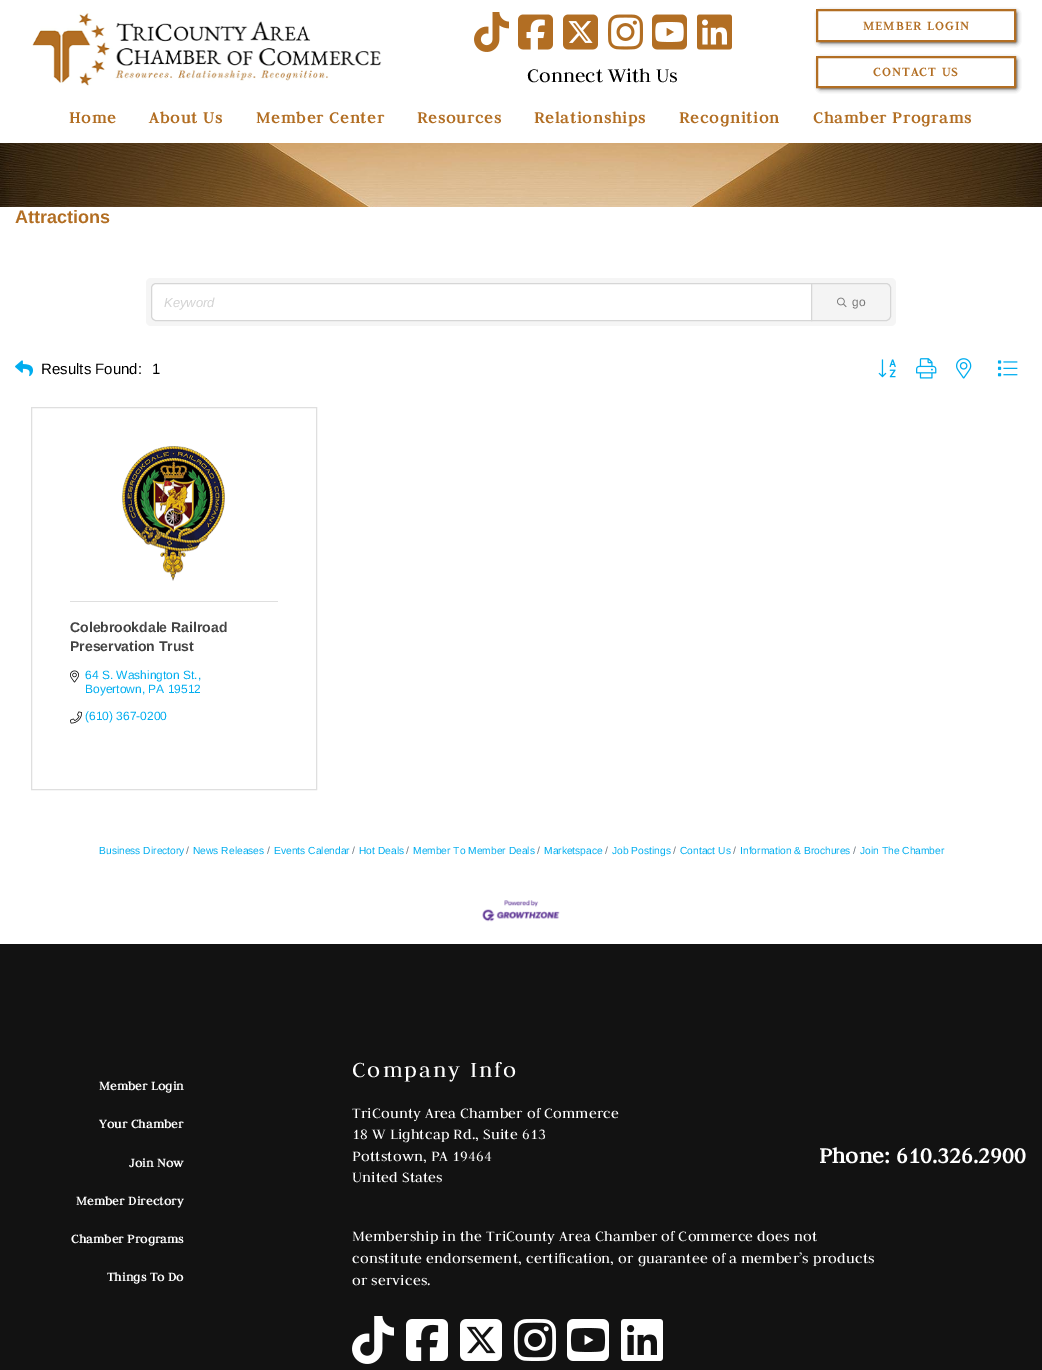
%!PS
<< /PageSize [1042 1370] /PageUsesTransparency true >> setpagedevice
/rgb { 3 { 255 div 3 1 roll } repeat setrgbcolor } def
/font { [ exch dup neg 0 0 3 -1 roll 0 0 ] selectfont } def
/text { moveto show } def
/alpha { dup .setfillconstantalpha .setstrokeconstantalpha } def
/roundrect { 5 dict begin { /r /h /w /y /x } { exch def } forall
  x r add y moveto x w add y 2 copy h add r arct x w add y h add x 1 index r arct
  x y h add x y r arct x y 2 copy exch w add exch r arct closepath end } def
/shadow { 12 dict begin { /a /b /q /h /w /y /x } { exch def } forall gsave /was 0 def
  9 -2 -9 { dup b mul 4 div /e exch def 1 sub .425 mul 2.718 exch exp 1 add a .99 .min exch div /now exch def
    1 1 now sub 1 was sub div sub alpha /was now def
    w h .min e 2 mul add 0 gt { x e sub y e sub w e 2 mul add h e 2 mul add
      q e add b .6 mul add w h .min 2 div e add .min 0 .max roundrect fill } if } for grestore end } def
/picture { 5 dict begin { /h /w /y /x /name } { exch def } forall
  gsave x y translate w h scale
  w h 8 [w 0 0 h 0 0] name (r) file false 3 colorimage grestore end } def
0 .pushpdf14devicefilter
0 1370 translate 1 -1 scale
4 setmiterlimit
255 255 255 rgb
0 0 1042 1370 rectfill
(img_01.rgb) 32 13 350 73 picture
(img_02.rgb) 474 12 35 40 picture
(img_03.rgb) 518 14 35 36 picture
(img_04.rgb) 563 14 35 36 picture
(img_05.rgb) 608 14 35 36 picture
(img_06.rgb) 652 14 35 36 picture
(img_07.rgb) 697 14 35 36 picture
gsave
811 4 moveto 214 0 rlineto 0 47 rlineto -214 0 rlineto closepath 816 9 moveto 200 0 rlineto 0 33 rlineto -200 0 rlineto closepath eoclip newpath
0 0 0 rgb
820 13 196 29 0 2.5 1 shadow
grestore
178 110 35 rgb
2 setlinewidth
817 10 198 31 rectstroke
gsave
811 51 moveto 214 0 rlineto 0 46 rlineto -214 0 rlineto closepath 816 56 moveto 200 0 rlineto 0 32 rlineto -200 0 rlineto closepath eoclip newpath
0 0 0 rgb
820 60 196 28 0 2.5 1 shadow
grestore
817 57 198 30 rectstroke
(img_08.rgb) 0 143 1042 64 picture
245 245 245 rgb
146 278 750 48 5 roundrect fill
255 255 255 rgb
156 283.5 moveto 655.5 0 rlineto 0 37 rlineto -655.5 0 rlineto -2.5 0 -4.5 -2 -4.5 -4.5 rcurveto 0 -28 rlineto 0 -2.5 2 -4.5 4.5 -4.5 rcurveto closepath gsave fill grestore
214 214 214 rgb
1 setlinewidth
stroke
244 244 244 rgb
811.5 283.5 moveto 74.5 0 rlineto 2.5 0 4.5 2 4.5 4.5 rcurveto 0 28 rlineto 0 2.5 -2 4.5 -4.5 4.5 rcurveto -74.5 0 rlineto closepath gsave fill grestore
214 214 214 rgb
stroke
(img_09.rgb) 837 297 10 11 picture
(img_10.rgb) 15 360 18 17 picture
(img_11.rgb) 878 359 18 19 picture
(img_12.rgb) 916 358 21 21 picture
(img_13.rgb) 956 358 16 21 picture
(img_14.rgb) 997 360 21 17 picture
223 223 223 rgb
31.5 407.5 285 382 rectstroke
(img_15.rgb) 122 446 103 135 picture
70 601 208 1 rectfill
(img_16.rgb) 70 670 9 13 picture
(img_17.rgb) 70 711 12 13 picture
(img_18.rgb) 482 900 78 22 picture
18 18 18 rgb
0 944 1042 426 rectfill
(img_19.rgb) 352 1316 42 48 picture
(img_20.rgb) 406 1319 42 42 picture
(img_21.rgb) 460 1319 42 42 picture
(img_22.rgb) 514 1319 42 42 picture
(img_23.rgb) 567 1319 42 42 picture
(img_24.rgb) 621 1319 42 42 picture
/Judson-Regular 21.5 font
0 0 0 rgb
(Connect With Us) 527 82 text
/Judson-Bold 13.5 font
178 110 35 rgb
863 30 moveto 1.4 0 (MEMBER LOGIN) ashow
873 76 moveto 1.4 0 (CONTACT US) ashow
/Judson-Bold 17.5 font
69 123 moveto 1 0 (Home) ashow
149 123 moveto 1 0 (About Us) ashow
256 123 moveto 1 0 (Member Center) ashow
417 123 moveto 1 0 (Resources) ashow
534 123 moveto 1 0 (Relationships) ashow
679 123 moveto 1 0 (Recognition) ashow
813 123 moveto 1 0 (Chamber Programs) ashow
/LiberationSans-Bold 18 font
(Attractions) 15 223 text
/LiberationSans-Italic 13 font
210 210 210 rgb
(Keyword) 164 307 text
/LiberationSans-Regular 12 font
119 119 119 rgb
(go) 852 306 text
/LiberationSans-Regular 15 font
0 0 0 rgb
(Results Found:) 41 374 text
(1) 152 374 text
/LiberationSans-Bold 14 font
68 68 68 rgb
(Colebrookdale Railroad) 70 632 text
(Preservation Trust) 70 651 text
/LiberationSans-Regular 12 font
0 173 239 rgb
(64 S. Washington St.,) 85 679 text
(Boyertown, PA 19512) 85 693 text
(\(610\) 367-0200) 85 720 text
/LiberationSans-Regular 10.25 font
(Business Directory) 99 854 text
108 117 125 rgb
(/) 186 854 text
0 173 239 rgb
(News Releases) 193 854 text
108 117 125 rgb
(/) 267 854 text
0 173 239 rgb
(Events Calendar) 274 854 text
108 117 125 rgb
(/) 352 854 text
0 173 239 rgb
(Hot Deals) 359 854 text
108 117 125 rgb
(/) 406 854 text
0 173 239 rgb
(Member To Member Deals) 413 854 text
108 117 125 rgb
(/) 537 854 text
0 173 239 rgb
(Marketspace) 544 854 text
108 117 125 rgb
(/) 605 854 text
0 173 239 rgb
(Job Postings) 612 854 text
108 117 125 rgb
(/) 673 854 text
0 173 239 rgb
(Contact Us) 680 854 text
108 117 125 rgb
(/) 733 854 text
0 173 239 rgb
(Information & Brochures) 740 854 text
108 117 125 rgb
(/) 853 854 text
0 173 239 rgb
(Join The Chamber) 860 854 text
/Judson-Bold 13.5 font
255 255 255 rgb
99 1090 moveto 0.15 0 (Member Login) ashow
99 1128 moveto 0.15 0 (Your Chamber) ashow
129 1167 moveto 0.15 0 (Join Now) ashow
76 1205 moveto 0.15 0 (Member Directory) ashow
71 1243 moveto 0.15 0 (Chamber Programs) ashow
107 1281 moveto 0.15 0 (Things To Do) ashow
/Judson-Regular 24 font
352 1077 moveto 2 0 (Company Info) ashow
/Judson-Regular 16 font
352 1118 moveto 0.15 0 (TriCounty Area Chamber of Commerce) ashow
352 1139 moveto 0.15 0 (18 W Lightcap Rd., Suite 613) ashow
352 1161 moveto 0.15 0 (Pottstown, PA 19464) ashow
/Judson-Bold 24 font
819 1163 moveto 0.15 0 (Phone: 610.326.2900) ashow
/Judson-Regular 16 font
352 1182 moveto 0.15 0 (United States) ashow
352 1241 moveto 0.15 0 (Membership in the TriCounty Area Chamber of Commerce does not) ashow
352 1263 moveto 0.15 0 (constitute endorsement, certification, or guarantee of a member’s products) ashow
352 1285 moveto 0.15 0 (or services.) ashow
.poppdf14devicefilter showpage
